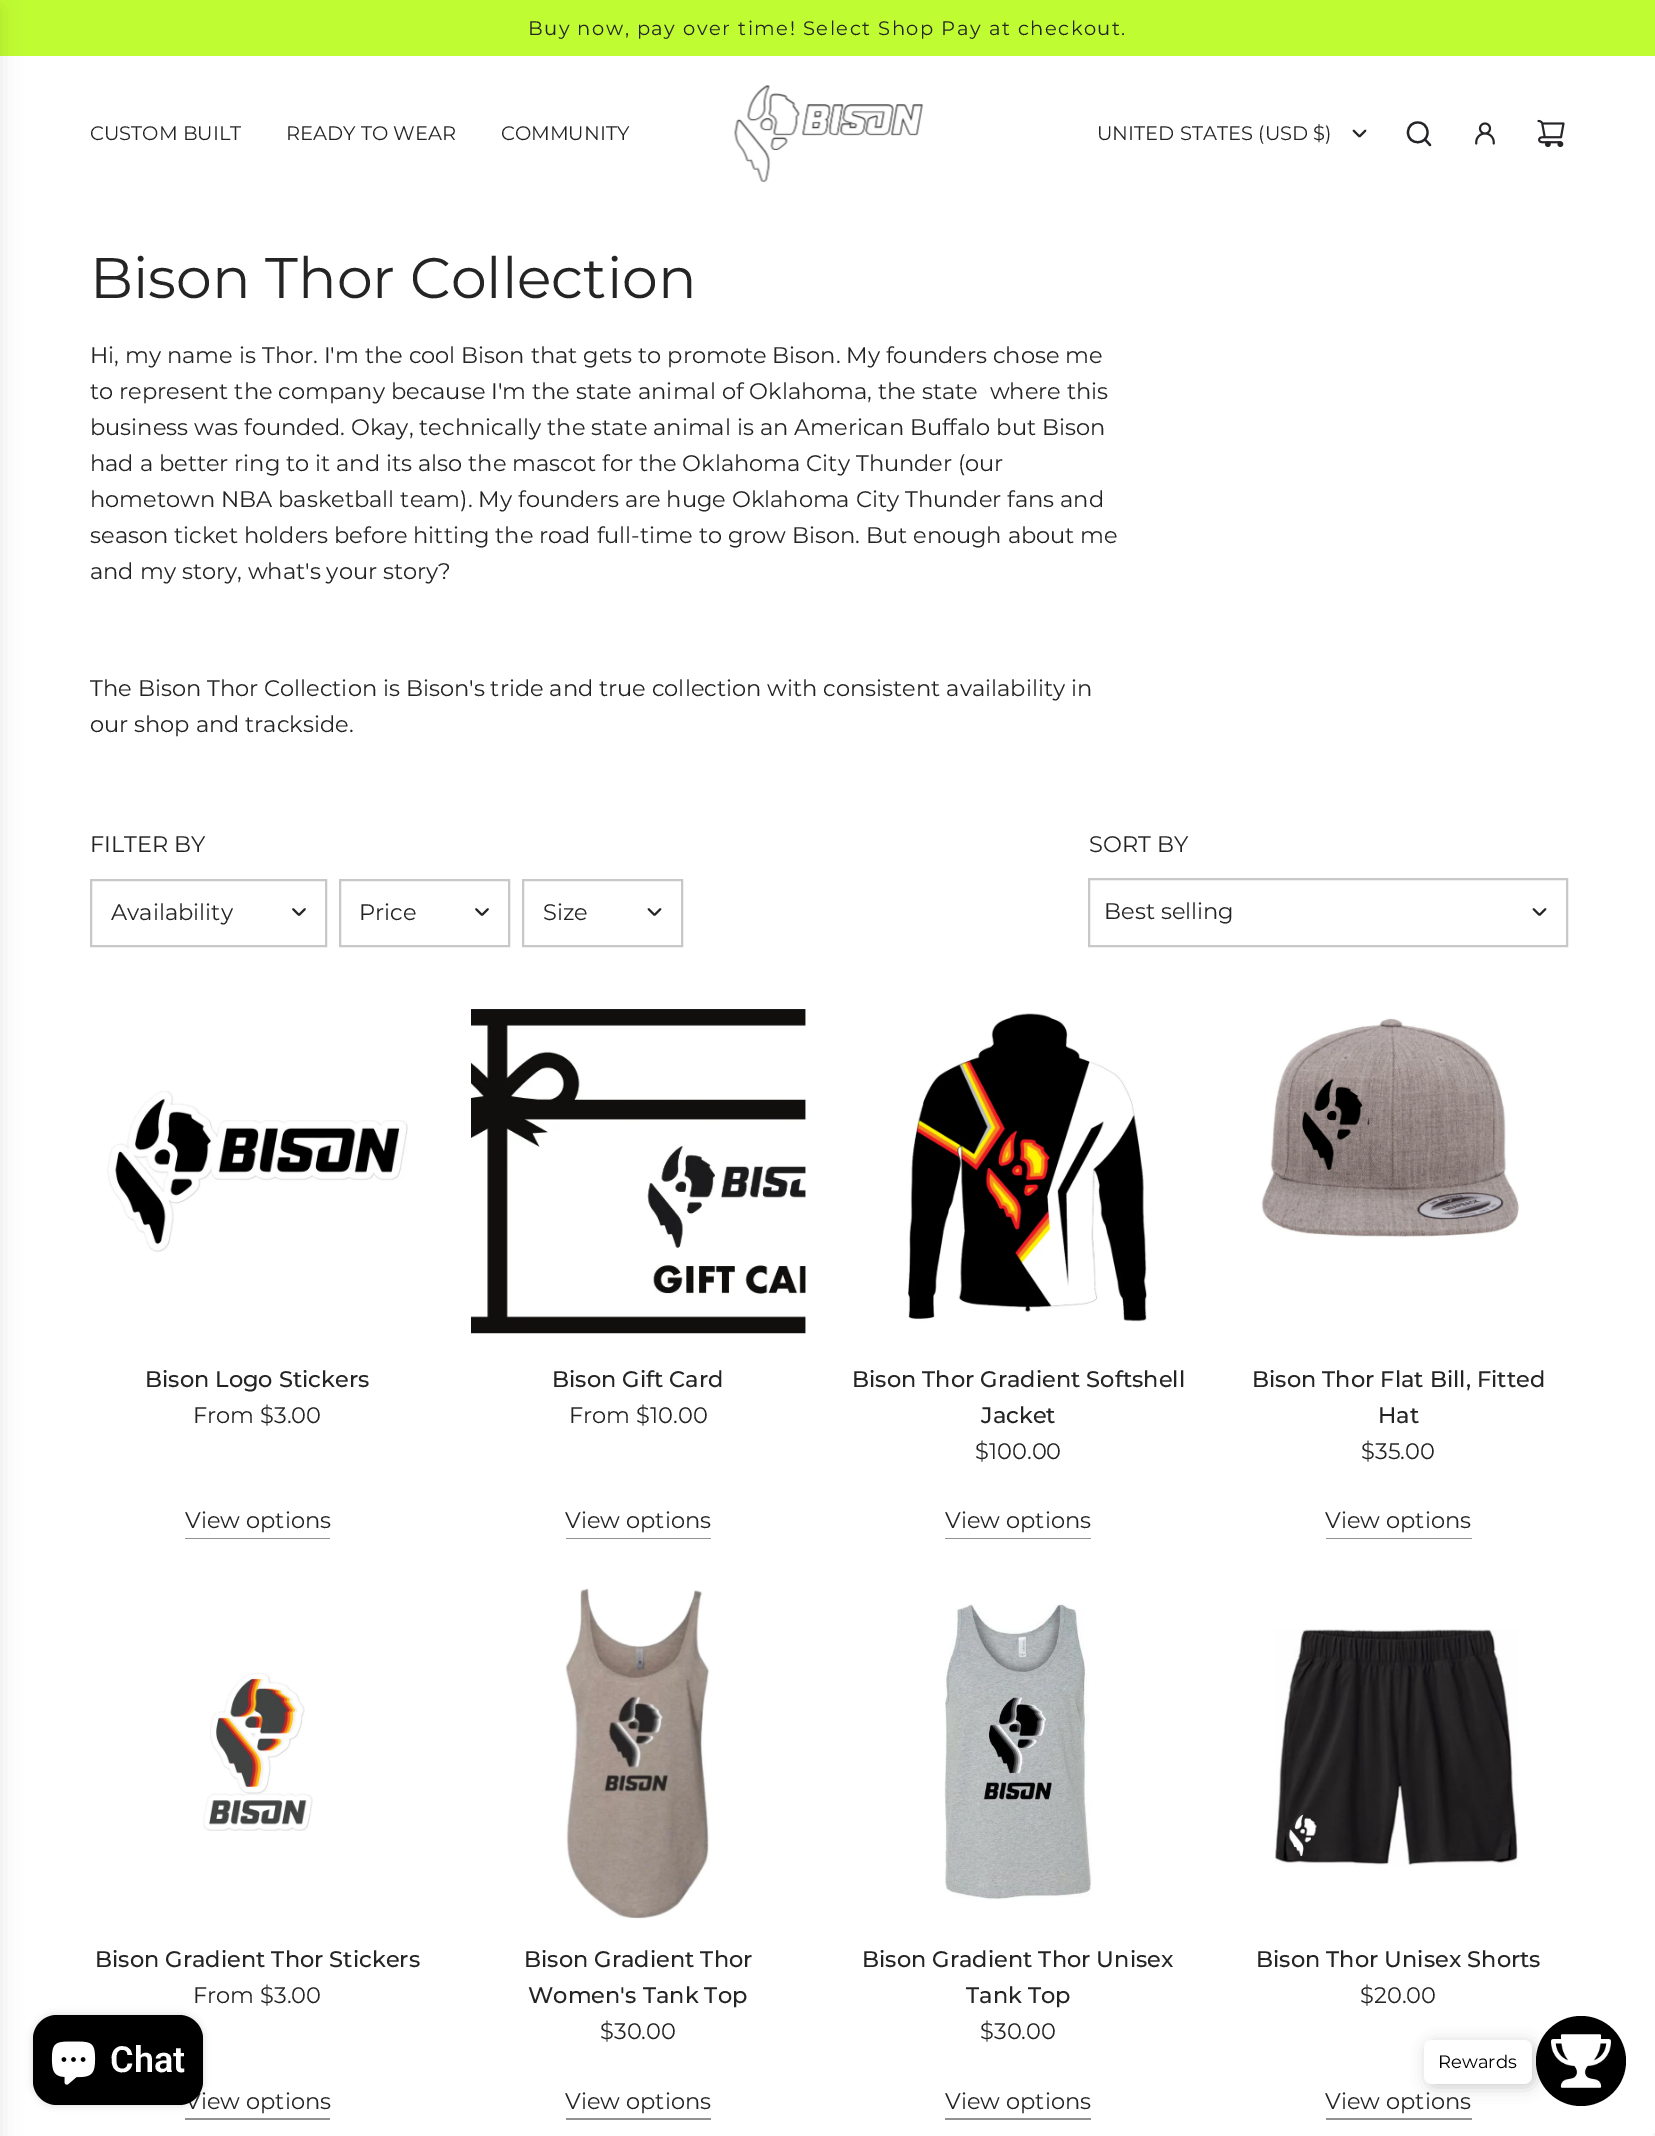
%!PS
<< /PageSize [1655 2136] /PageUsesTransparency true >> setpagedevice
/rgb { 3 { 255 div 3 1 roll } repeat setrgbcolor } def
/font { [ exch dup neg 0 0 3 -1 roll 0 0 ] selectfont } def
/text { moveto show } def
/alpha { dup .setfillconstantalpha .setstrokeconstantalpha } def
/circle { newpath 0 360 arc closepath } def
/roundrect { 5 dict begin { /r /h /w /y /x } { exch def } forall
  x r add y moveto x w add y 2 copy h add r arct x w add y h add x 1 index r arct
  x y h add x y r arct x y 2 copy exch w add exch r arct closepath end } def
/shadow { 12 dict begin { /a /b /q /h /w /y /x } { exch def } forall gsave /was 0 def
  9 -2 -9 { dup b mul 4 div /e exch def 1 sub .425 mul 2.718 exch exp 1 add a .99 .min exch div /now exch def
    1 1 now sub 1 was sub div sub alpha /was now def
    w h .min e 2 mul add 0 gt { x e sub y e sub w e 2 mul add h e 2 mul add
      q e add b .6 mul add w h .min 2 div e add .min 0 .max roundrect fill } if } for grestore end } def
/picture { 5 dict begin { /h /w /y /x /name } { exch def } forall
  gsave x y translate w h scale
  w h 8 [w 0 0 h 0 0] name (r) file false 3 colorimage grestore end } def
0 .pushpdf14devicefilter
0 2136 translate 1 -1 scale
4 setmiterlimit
255 255 255 rgb
0 0 1655 2136 rectfill
192 252 50 rgb
0 0 1655 56 rectfill
0 0 0 rgb
-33 8 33 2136 0 11 0.1 shadow
(img_01.rgb) 734 85 189 97 picture
38 36 40 rgb
1.8 setlinewidth
1 setlinecap
1 setlinejoin
1353.5 130.5 moveto 6 6 rlineto 6 -6 rlineto stroke
2.2 setlinewidth
1425.5 140 moveto 4.5 5 rlineto 1408 132.5 moveto 0 13 19.5 13 19.5 0 rcurveto 0 -13.5 -19.5 -13.5 -19.5 0 rcurveto closepath stroke
(img_02.rgb) 1475 122 20 23 picture
(img_03.rgb) 1537 119 28 29 picture
200 200 200 rgb
2 setlinewidth
0 setlinecap
0 setlinejoin
91 880 235 66 rectstroke
36 36 36 rgb
1.8 setlinewidth
1 setlinecap
1 setlinejoin
293 909 moveto 6 6 rlineto 6 -6 rlineto stroke
200 200 200 rgb
2 setlinewidth
0 setlinecap
0 setlinejoin
340 880 169 66 rectstroke
36 36 36 rgb
1.8 setlinewidth
1 setlinecap
1 setlinejoin
476 909 moveto 6 6 rlineto 6 -6 rlineto stroke
200 200 200 rgb
2 setlinewidth
0 setlinecap
0 setlinejoin
523 880 159 66 rectstroke
36 36 36 rgb
1.8 setlinewidth
1 setlinecap
1 setlinejoin
648.5 909 moveto 6 6 rlineto 6 -6 rlineto stroke
200 200 200 rgb
2 setlinewidth
0 setlinecap
0 setlinejoin
1089 879 478 67 rectstroke
36 36 36 rgb
1.8 setlinewidth
1 setlinecap
1 setlinejoin
1533.5 909 moveto 6 6 rlineto 6 -6 rlineto stroke
(img_04.rgb) 107 1090 301 162 picture
146 146 146 rgb
185 1538 145 1 rectfill
(img_05.rgb) 471 1009 335 325 picture
566 1538 145 1 rectfill
(img_06.rgb) 908 1013 239 309 picture
945 1538 146 1 rectfill
(img_07.rgb) 1261 1018 259 220 picture
1326 1538 146 1 rectfill
(img_08.rgb) 203 1673 110 158 picture
185 2118 145 2 rectfill
(img_09.rgb) 565 1588 145 331 picture
566 2118 145 2 rectfill
(img_10.rgb) 944 1604 148 296 picture
945 2118 146 2 rectfill
(img_11.rgb) 1275 1629 243 237 picture
1326 2118 146 2 rectfill
0 0 0 rgb
1581 2061 45 circle fill
(img_12.rgb) 1551 2034 60 54 picture
33 2015 170 90 24 4 0.15 shadow
1427 2043 108 44 8 7.5 0.2 shadow
255 255 255 rgb
1424 2040 108 44 8 roundrect fill
245 245 245 rgb
1653 2133 2 3 rectfill
/Montserrat-Regular 19.5 font
36 36 36 rgb
528 35 moveto 1.5 0 (Buy now, pay over time! Select Shop Pay at checkout.) ashow
(CUSTOM BUILT) 90 140 text
(READY TO WEAR) 286 140 text
(COMMUNITY) 501 140 text
(UNITED STATES \(USD $\)) 1097 140 text
/Montserrat-Regular 57 font
(Bison Thor Collection) 90 298 text
/Montserrat-Regular 22.5 font
(Hi, my name is Thor. I'm the cool Bison that gets to promote Bison. My founders chose me) 90 363 text
(to represent the company because I'm the state animal of Oklahoma, the state  where this) 90 399 text
(business was founded. Okay, technically the state animal is an American Buffalo but Bison) 90 435 text
(had a better ring to it and its also the mascot for the Oklahoma City Thunder \(our) 90 471 text
(hometown NBA basketball team\). My founders are huge Oklahoma City Thunder fans and) 90 507 text
(season ticket holders before hitting the road full-time to grow Bison. But enough about me) 90 543 text
(and my story, what's your story?) 90 579 text
(The Bison Thor Collection is Bison's tride and true collection with consistent availability in) 90 696 text
(our shop and trackside.) 90 732 text
(FILTER BY) 90 852 text
(Availability) 111 920 text
(Price) 359 920 text
(Size) 543 920 text
(SORT BY) 1089 852 text
(Best selling) 1104 919 text
/Montserrat-Medium 22.5 font
(Bison Logo Stickers) 145 1387 text
/Montserrat-Regular 22.5 font
(From $3.00) 193 1423 text
(View options) 185 1528 text
/Montserrat-Medium 22.5 font
(Bison Gift Card) 552 1387 text
/Montserrat-Regular 22.5 font
(From $10.00) 569 1423 text
(View options) 565 1528 text
/Montserrat-Medium 22.5 font
(Bison Thor Gradient Softshell) 852 1387 text
(Jacket) 981 1423 text
/Montserrat-Regular 22.5 font
($100.00) 975 1459 text
(View options) 945 1528 text
/Montserrat-Medium 22.5 font
(Bison Thor Flat Bill, Fitted) 1252 1387 text
(Hat) 1378 1423 text
/Montserrat-Regular 22.5 font
($35.00) 1361 1459 text
(View options) 1325 1528 text
/Montserrat-Medium 22.5 font
(Bison Gradient Thor Stickers) 95 1967 text
/Montserrat-Regular 22.5 font
(From $3.00) 193 2003 text
(View options) 185 2109 text
/Montserrat-Medium 22.5 font
(Bison Gradient Thor) 524 1967 text
(Women's Tank Top) 528 2003 text
/Montserrat-Regular 22.5 font
($30.00) 600 2039 text
(View options) 565 2109 text
/Montserrat-Medium 22.5 font
(Bison Gradient Thor Unisex) 862 1967 text
(Tank Top) 966 2003 text
/Montserrat-Regular 22.5 font
($30.00) 980 2039 text
(View options) 945 2109 text
/Montserrat-Medium 22.5 font
(Bison Thor Unisex Shorts) 1256 1967 text
/Montserrat-Regular 22.5 font
($20.00) 1360 2003 text
(View options) 1325 2109 text
0 0 0 rgb
33 2015 170 90 24 roundrect fill
(img_13.rgb) 51 2041 45 44 picture
/Roboto-SemiBold 36 font
255 255 255 rgb
(Chat) 110 2072 text
/Montserrat-Regular 18 font
0 0 0 rgb
(Rewards) 1438 2068 text
.poppdf14devicefilter showpage
